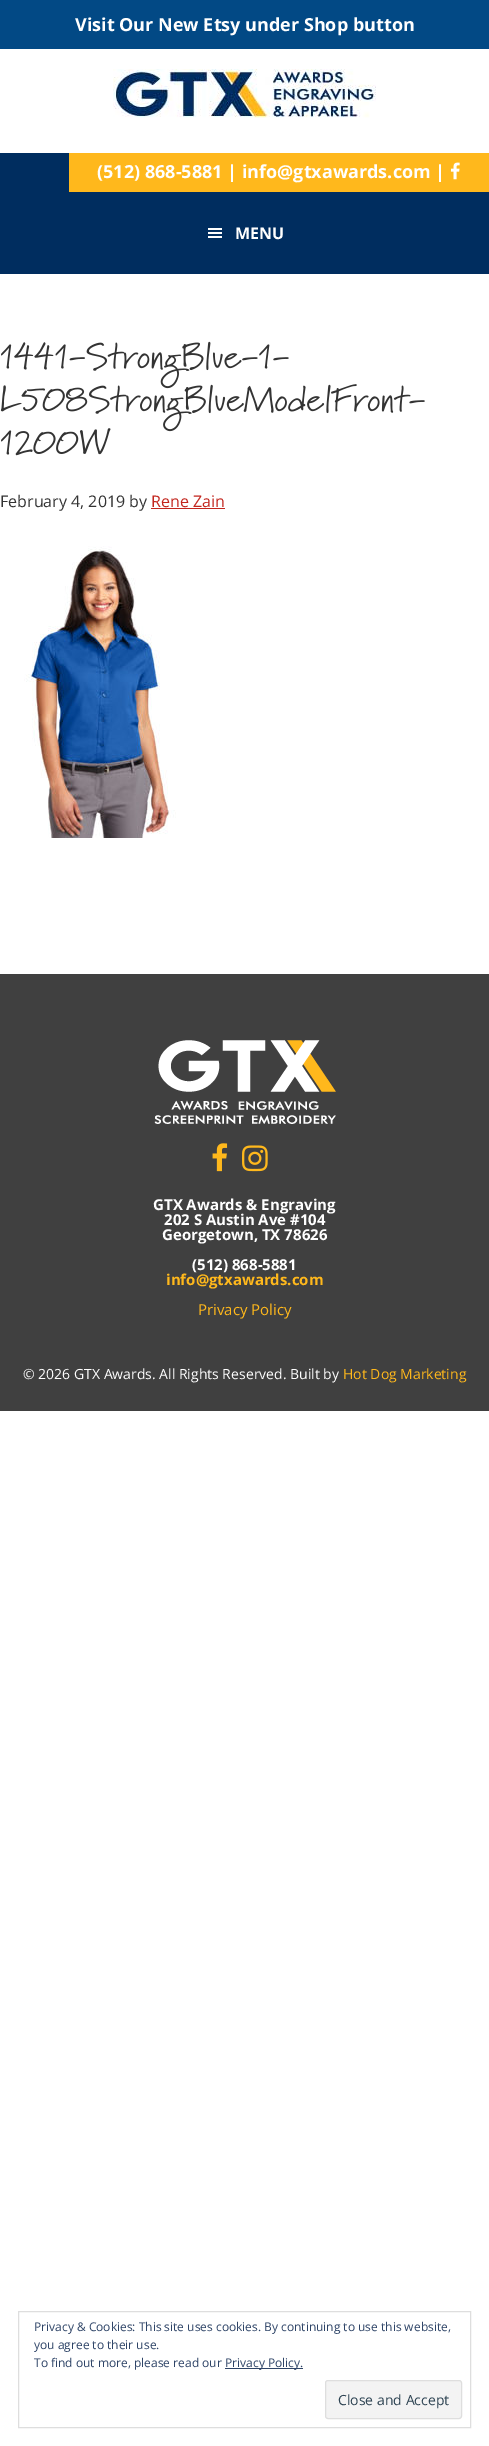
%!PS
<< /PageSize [489 2446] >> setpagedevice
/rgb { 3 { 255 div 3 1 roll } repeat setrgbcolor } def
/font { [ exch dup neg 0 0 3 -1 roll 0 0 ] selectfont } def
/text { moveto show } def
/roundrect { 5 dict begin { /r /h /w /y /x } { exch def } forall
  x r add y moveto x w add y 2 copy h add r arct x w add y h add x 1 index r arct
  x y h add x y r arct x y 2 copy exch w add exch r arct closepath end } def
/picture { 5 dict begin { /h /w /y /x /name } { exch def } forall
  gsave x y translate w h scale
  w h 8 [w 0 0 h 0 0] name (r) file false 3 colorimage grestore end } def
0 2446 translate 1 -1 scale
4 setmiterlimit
255 255 255 rgb
0 0 489 2446 rectfill
2 73 133 rgb
0 0 489 49 rectfill
(img_01.rgb) 113 69 263 49 picture
0 45 95 rgb
0 153 489 121 rectfill
255 184 28 rgb
69 153 420 39 rectfill
(img_02.rgb) 450 162 10 18 picture
(img_03.rgb) 208 228 14 10 picture
(img_04.rgb) 1 341 288 48 picture
(img_05.rgb) 0 384 425 48 picture
(img_06.rgb) 1 428 110 28 picture
195 37 29 rgb
151 508 74 1 rectfill
(img_07.rgb) 24 546 152 292 picture
64 64 64 rgb
0 974 489 437 rectfill
(img_08.rgb) 154 1040 182 84 picture
(img_09.rgb) 212 1143 16 29 picture
(img_10.rgb) 242 1145 26 27 picture
222 222 222 rgb
18.5 2311.5 452 116 rectstroke
46 68 103 rgb
225 2368 78 1 rectfill
243 243 243 rgb
325.5 2380.5 136 38 2.5 roundrect gsave fill grestore
222 222 222 rgb
stroke
/OpenSans-Bold 18 font
255 255 255 rgb
(Visit Our New Etsy under Shop button) 75 31 text
(\(512\) 868-5881 | info@gtxawards.com |) 97 178 text
/OpenSans-Bold 16 font
(MENU) 235 239 text
/OpenSans-Regular 16 font
51 51 51 rgb
(February 4, 2019 by) 0 507 text
195 37 29 rgb
(Rene Zain) 151 507 text
/OpenSans-Bold 15 font
255 255 255 rgb
(GTX Awards & Engraving) 153 1210 text
(202 S Austin Ave #104) 164 1225 text
(Georgetown, TX 78626) 162 1240 text
(\(512\) 868-5881) 192 1270 text
255 184 28 rgb
(info@gtxawards.com) 166 1285 text
/OpenSans-Regular 15 font
(Privacy Policy) 198 1315 text
/OpenSans-Regular 14 font
255 255 255 rgb
(© 2026 GTX Awards. All Rights Reserved. Built by) 23 1379 text
255 184 28 rgb
(Hot Dog Marketing) 343 1379 text
/OpenSans-Regular 12 font
46 68 103 rgb
(Privacy & Cookies: This site uses cookies. By continuing to use this website,) 34 2331 text
(you agree to their use.) 34 2349 text
(To find out more, please read our) 34 2367 text
(Privacy Policy.) 225 2367 text
/OpenSans-Regular 14 font
46 68 83 rgb
(Close and Accept) 338 2405 text
showpage
